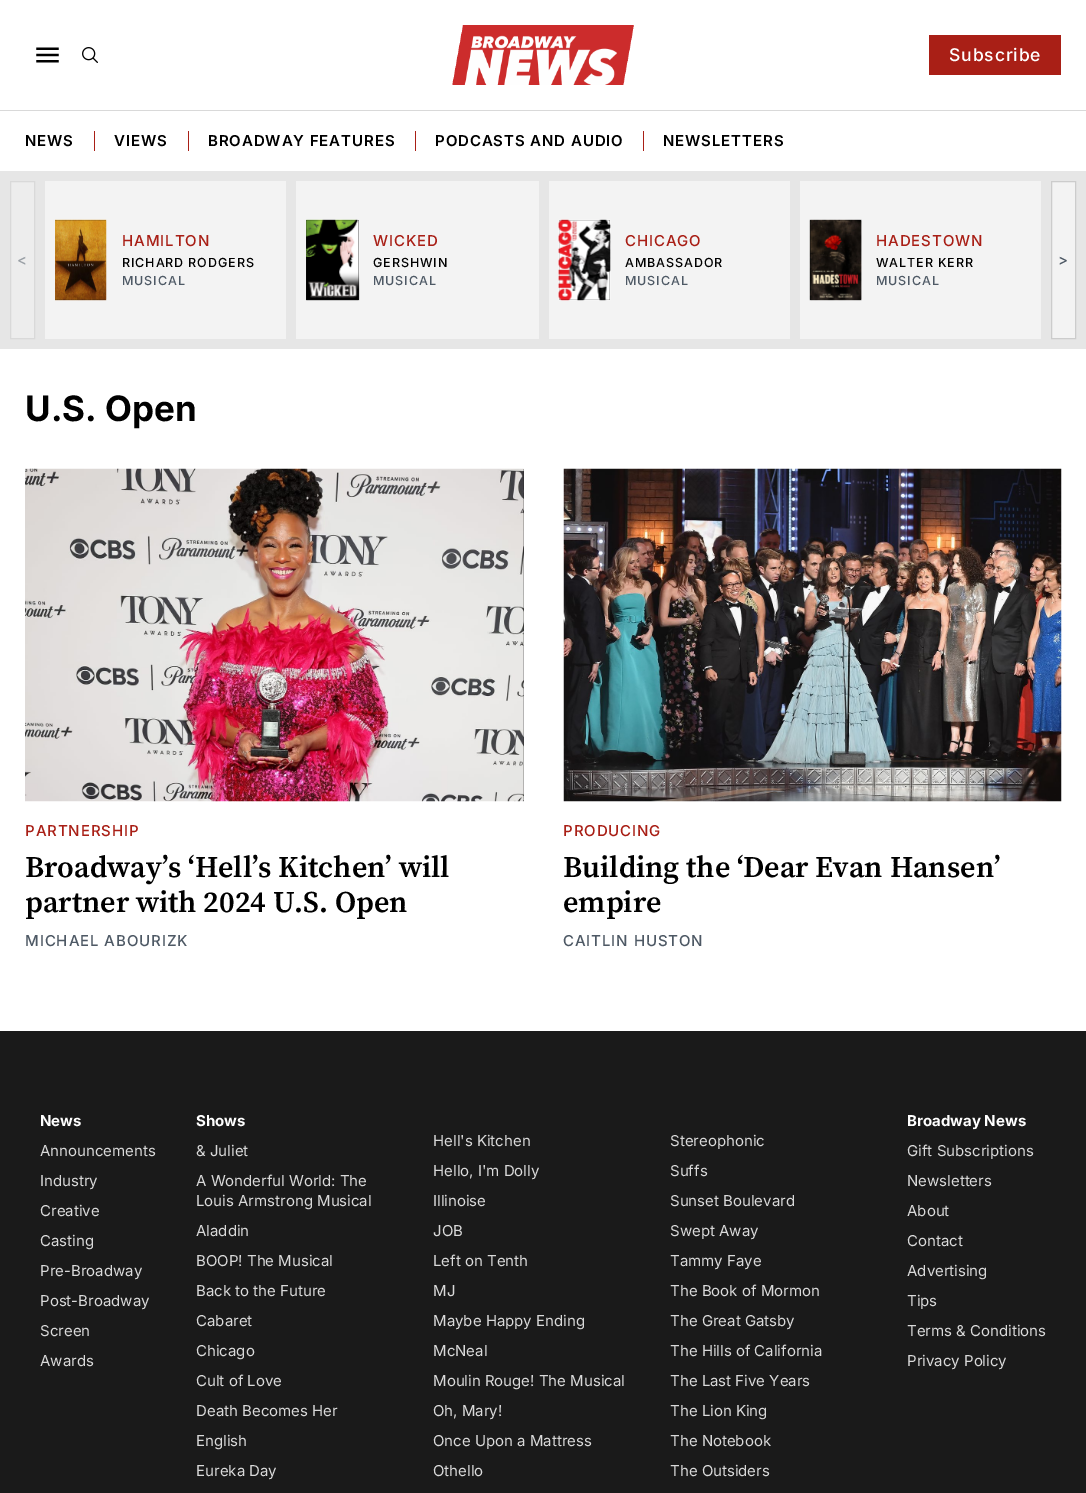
%!PS
<< /PageSize [1086 1493] >> setpagedevice
/rgb { 3 { 255 div 3 1 roll } repeat setrgbcolor } def
/font { [ exch dup neg 0 0 3 -1 roll 0 0 ] selectfont } def
/text { moveto show } def
/picture { 5 dict begin { /h /w /y /x /name } { exch def } forall
  gsave x y translate w h scale
  w h 8 [w 0 0 h 0 0] name (r) file false 3 colorimage grestore end } def
0 1493 translate 1 -1 scale
4 setmiterlimit
255 255 255 rgb
0 0 1086 1493 rectfill
217 217 217 rgb
0 110 1086 1 rectfill
(img_01.rgb) 36 47 23 16 picture
(img_02.rgb) 82 47 16 16 picture
(img_03.rgb) 452 25 182 60 picture
169 31 22 rgb
929 35 132 40 rectfill
94 131 1 20 rectfill
188 131 1 20 rectfill
415 131 1 20 rectfill
643 131 1 20 rectfill
230 230 230 rgb
0 171 1086 178 rectfill
237 237 237 rgb
10.5 181.5 moveto 24 0 rlineto 0 157 rlineto -24 0 rlineto closepath gsave fill grestore
217 217 217 rgb
stroke
243 243 243 rgb
45 181 241 158 rectfill
(img_04.rgb) 55 219 52 82 picture
296 181 243 158 rectfill
26 26 26 rgb
306 220 53 80 rectfill
(img_05.rgb) 306 219 54 82 picture
243 243 243 rgb
549 181 241 158 rectfill
26 26 26 rgb
559 220 51 80 rectfill
(img_06.rgb) 558 219 53 82 picture
243 243 243 rgb
800 181 241 158 rectfill
26 26 26 rgb
810 220 51 80 rectfill
(img_07.rgb) 809 219 53 82 picture
243 243 243 rgb
1051.5 181.5 moveto 24 0 rlineto 0 157 rlineto -24 0 rlineto closepath gsave fill grestore
204 204 204 rgb
stroke
(img_08.rgb) 25 468 499 334 picture
(img_09.rgb) 563 468 499 334 picture
26 26 26 rgb
0 1031 1086 462 rectfill
/Inter-Medium 17.5 font
255 255 255 rgb
949 61 moveto 0.9 0 (Subscribe) ashow
/Inter-SemiBold 15 font
0 0 0 rgb
25 146 moveto 0.9 0 (NEWS) ashow
114 146 moveto 0.9 0 (VIEWS) ashow
208 146 moveto 0.9 0 (BROADWAY FEATURES) ashow
435 146 moveto 0.9 0 (PODCASTS AND AUDIO) ashow
663 146 moveto 0.9 0 (NEWSLETTERS) ashow
/Inter-Medium 15 font
154 160 166 rgb
17 265 moveto 0.9 0 (<) ashow
169 31 22 rgb
122 246 moveto 0.9 0 (HAMILTON) ashow
/Inter-Medium 12.5 font
0 0 0 rgb
122 267 moveto 0.9 0 (RICHARD RODGERS) ashow
78 89 101 rgb
122 285 moveto 0.9 0 (MUSICAL) ashow
/Inter-Medium 15 font
169 31 22 rgb
373 246 moveto 0.9 0 (WICKED) ashow
/Inter-Medium 12.5 font
0 0 0 rgb
373 267 moveto 0.9 0 (GERSHWIN) ashow
78 89 101 rgb
373 285 moveto 0.9 0 (MUSICAL) ashow
/Inter-Medium 15 font
169 31 22 rgb
625 246 moveto 0.9 0 (CHICAGO) ashow
/Inter-Medium 12.5 font
0 0 0 rgb
625 267 moveto 0.9 0 (AMBASSADOR) ashow
78 89 101 rgb
625 285 moveto 0.9 0 (MUSICAL) ashow
/Inter-Medium 15 font
169 31 22 rgb
876 246 moveto 0.9 0 (HADESTOWN) ashow
/Inter-Medium 12.5 font
0 0 0 rgb
876 267 moveto 0.9 0 (WALTER KERR) ashow
78 89 101 rgb
876 285 moveto 0.9 0 (MUSICAL) ashow
/Inter-Medium 15 font
1058 265 moveto 0.9 0 (>) ashow
/Inter-Bold 35 font
0 0 0 rgb
(U.S. Open) 25 421 text
/Inter-Medium 15 font
169 31 22 rgb
25 836 moveto 0.9 0 (PARTNERSHIP) ashow
/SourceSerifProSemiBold-SemiBold 30 font
0 0 0 rgb
(Broadway’s ‘Hell’s Kitchen’ will) 25 877 text
(partner with 2024 U.S. Open) 25 912 text
/Inter-Medium 15 font
78 89 101 rgb
25 946 moveto 0.9 0 (MICHAEL ABOURIZK) ashow
169 31 22 rgb
563 836 moveto 0.9 0 (PRODUCING) ashow
/SourceSerifProSemiBold-SemiBold 30 font
0 0 0 rgb
(Building the ‘Dear Evan Hansen’) 563 877 text
(empire) 563 912 text
/Inter-Medium 15 font
78 89 101 rgb
563 946 moveto 0.9 0 (CAITLIN HUSTON) ashow
/Inter-Bold 15 font
255 255 255 rgb
(News) 40 1126 text
/Inter-Regular 15 font
217 217 217 rgb
(Announcements) 40 1156 text
(Industry) 40 1186 text
(Creative) 40 1216 text
(Casting) 40 1246 text
(Pre-Broadway) 40 1276 text
(Post-Broadway) 40 1306 text
(Screen) 40 1336 text
(Awards) 40 1366 text
/Inter-Bold 15 font
255 255 255 rgb
(Shows) 196 1126 text
/Inter-Regular 15 font
217 217 217 rgb
(& Juliet) 196 1156 text
(Hell's Kitchen) 433 1146 text
(Stereophonic) 670 1146 text
(Hello, I'm Dolly) 433 1176 text
(Suffs) 670 1176 text
(A Wonderful World: The) 196 1186 text
(Louis Armstrong Musical) 196 1206 text
(Illinoise) 433 1206 text
(Sunset Boulevard) 670 1206 text
(Aladdin) 196 1236 text
(JOB) 433 1236 text
(Swept Away) 670 1236 text
(BOOP! The Musical) 196 1266 text
(Left on Tenth) 433 1266 text
(Tammy Faye) 670 1266 text
(Back to the Future) 196 1296 text
(MJ) 433 1296 text
(The Book of Mormon) 670 1296 text
(Cabaret) 196 1326 text
(Maybe Happy Ending) 433 1326 text
(The Great Gatsby) 670 1326 text
(Chicago) 196 1356 text
(McNeal) 433 1356 text
(The Hills of California) 670 1356 text
(Cult of Love) 196 1386 text
(Moulin Rouge! The Musical) 433 1386 text
(The Last Five Years) 670 1386 text
(Death Becomes Her) 196 1416 text
(Oh, Mary!) 433 1416 text
(The Lion King) 670 1416 text
(English) 196 1446 text
(Once Upon a Mattress) 433 1446 text
(The Notebook) 670 1446 text
(Eureka Day) 196 1476 text
(Othello) 433 1476 text
(The Outsiders) 670 1476 text
/Inter-Bold 15 font
255 255 255 rgb
(Broadway News) 907 1126 text
/Inter-Regular 15 font
217 217 217 rgb
(Gift Subscriptions) 907 1156 text
(Newsletters) 907 1186 text
(About) 907 1216 text
(Contact) 907 1246 text
(Advertising) 907 1276 text
(Tips) 907 1306 text
(Terms & Conditions) 907 1336 text
(Privacy Policy) 907 1366 text
showpage
